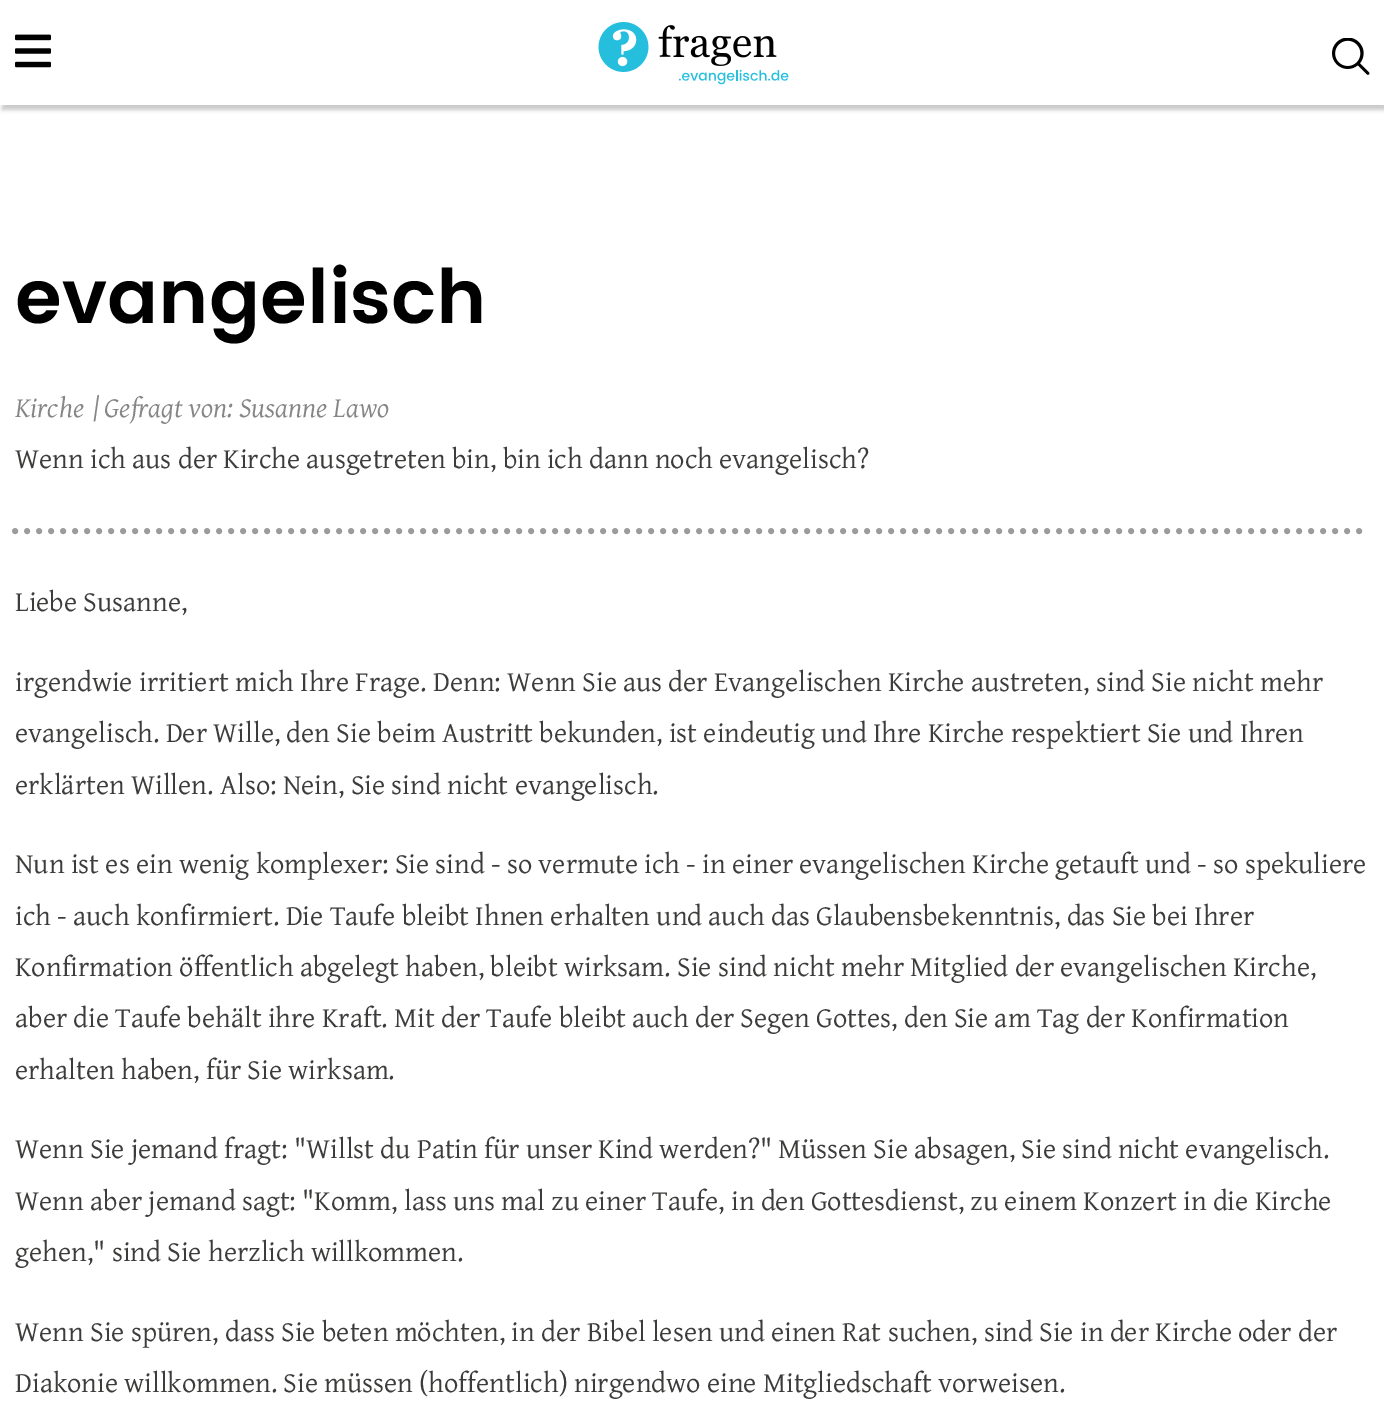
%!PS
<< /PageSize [1384 1408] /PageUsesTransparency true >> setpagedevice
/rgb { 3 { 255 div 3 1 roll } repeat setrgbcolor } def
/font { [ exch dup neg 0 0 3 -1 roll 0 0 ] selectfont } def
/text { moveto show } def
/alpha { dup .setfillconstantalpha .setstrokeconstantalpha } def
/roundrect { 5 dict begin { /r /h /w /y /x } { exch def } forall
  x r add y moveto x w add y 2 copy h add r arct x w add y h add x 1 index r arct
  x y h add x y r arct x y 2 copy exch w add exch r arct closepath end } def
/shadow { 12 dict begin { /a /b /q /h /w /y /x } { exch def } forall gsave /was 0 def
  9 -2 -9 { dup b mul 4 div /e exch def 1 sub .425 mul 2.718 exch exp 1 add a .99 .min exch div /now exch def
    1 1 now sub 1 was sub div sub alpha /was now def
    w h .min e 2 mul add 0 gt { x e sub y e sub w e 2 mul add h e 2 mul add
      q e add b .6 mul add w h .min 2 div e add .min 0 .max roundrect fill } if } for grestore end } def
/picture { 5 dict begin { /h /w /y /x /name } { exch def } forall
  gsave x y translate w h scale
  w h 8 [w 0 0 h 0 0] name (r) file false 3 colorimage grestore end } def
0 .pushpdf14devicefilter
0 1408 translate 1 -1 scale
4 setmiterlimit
255 255 255 rgb
0 0 1384 1408 rectfill
gsave
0 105 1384 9 rectclip
200 200 200 rgb
2 5 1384 105 0 2 1 shadow
grestore
(img_01.rgb) 15 34 36 34 picture
(img_02.rgb) 598 22 191 63 picture
(img_03.rgb) 1332 38 38 37 picture
156 155 155 rgb
6 setlinewidth
1 setlinecap
[0 12] 0 setdash
15 531 moveto 1354.5 0 rlineto stroke
/Poppins-SemiBold 75 font
0 0 0 rgb
(evangelisch) 15 323 text
/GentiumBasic-Italic 28.5 font
134 134 134 rgb
(Kirche) 15 417 text
(| Gefragt von: Susanne Lawo) 93 417 text
/GentiumBasic-Regular 28.5 font
60 60 59 rgb
(Wenn ich aus der Kirche ausgetreten bin, bin ich dann noch evangelisch?) 15 468 text
(Liebe Susanne,) 15 611 text
(irgendwie irritiert mich Ihre Frage. Denn: Wenn Sie aus der Evangelischen Kirche austreten, sind Sie nicht mehr) 15 691 text
(evangelisch. Der Wille, den Sie beim Austritt bekunden, ist eindeutig und Ihre Kirche respektiert Sie und Ihren) 15 742 text
(erklärten Willen. Also: Nein, Sie sind nicht evangelisch.) 15 794 text
(Nun ist es ein wenig komplexer: Sie sind - so vermute ich - in einer evangelischen Kirche getauft und - so spekuliere) 15 873 text
(ich - auch konfirmiert. Die Taufe bleibt Ihnen erhalten und auch das Glaubensbekenntnis, das Sie bei Ihrer) 15 925 text
(Konfirmation öffentlich abgelegt haben, bleibt wirksam. Sie sind nicht mehr Mitglied der evangelischen Kirche,) 15 976 text
(aber die Taufe behält ihre Kraft. Mit der Taufe bleibt auch der Segen Gottes, den Sie am Tag der Konfirmation) 15 1027 text
(erhalten haben, für Sie wirksam.) 15 1079 text
(Wenn Sie jemand fragt: "Willst du Patin für unser Kind werden?" Müssen Sie absagen, Sie sind nicht evangelisch.) 15 1158 text
(Wenn aber jemand sagt: "Komm, lass uns mal zu einer Taufe, in den Gottesdienst, zu einem Konzert in die Kirche) 15 1210 text
(gehen," sind Sie herzlich willkommen.) 15 1261 text
(Wenn Sie spüren, dass Sie beten möchten, in der Bibel lesen und einen Rat suchen, sind Sie in der Kirche oder der) 15 1341 text
(Diakonie willkommen. Sie müssen \(hoffentlich\) nirgendwo eine Mitgliedschaft vorweisen.) 15 1392 text
.poppdf14devicefilter showpage
